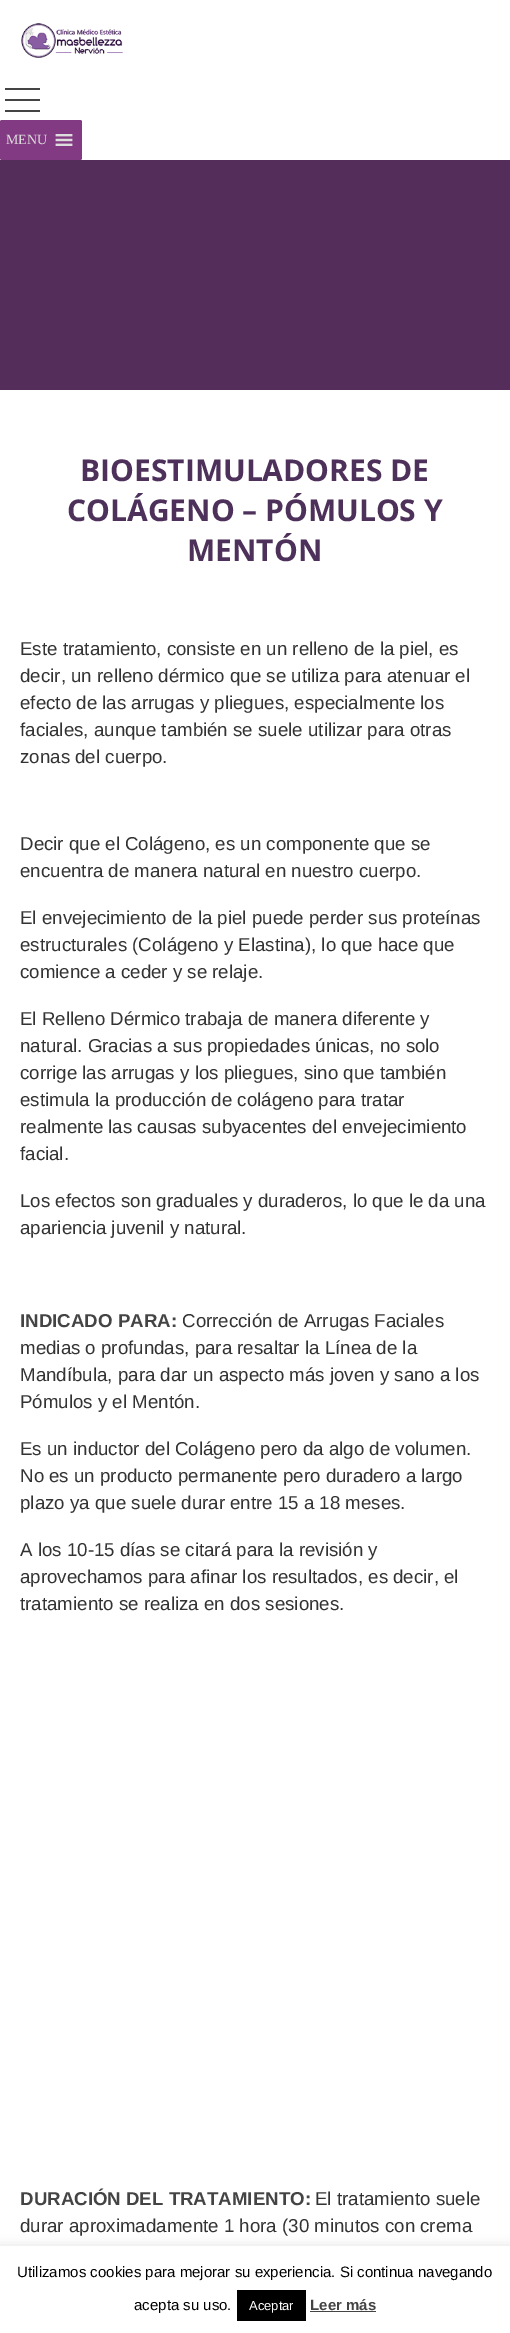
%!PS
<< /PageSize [510 2333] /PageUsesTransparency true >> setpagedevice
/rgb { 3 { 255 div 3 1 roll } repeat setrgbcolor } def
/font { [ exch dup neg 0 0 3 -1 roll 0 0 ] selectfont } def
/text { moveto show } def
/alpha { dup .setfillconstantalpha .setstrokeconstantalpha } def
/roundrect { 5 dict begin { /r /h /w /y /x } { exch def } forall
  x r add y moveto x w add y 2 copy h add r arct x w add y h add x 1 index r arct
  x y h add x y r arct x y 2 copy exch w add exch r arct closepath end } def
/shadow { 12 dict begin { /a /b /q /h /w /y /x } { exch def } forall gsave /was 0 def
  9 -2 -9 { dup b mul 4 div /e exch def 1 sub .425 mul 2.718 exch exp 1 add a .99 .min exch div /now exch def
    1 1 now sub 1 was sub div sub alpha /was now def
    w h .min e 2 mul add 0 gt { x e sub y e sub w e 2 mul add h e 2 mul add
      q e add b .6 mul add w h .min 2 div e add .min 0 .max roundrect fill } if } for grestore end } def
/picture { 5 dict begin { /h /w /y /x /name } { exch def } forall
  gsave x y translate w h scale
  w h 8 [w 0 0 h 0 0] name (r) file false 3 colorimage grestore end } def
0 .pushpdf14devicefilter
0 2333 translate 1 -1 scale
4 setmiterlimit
255 255 255 rgb
0 0 510 2333 rectfill
(img_01.rgb) 21 23 102 35 picture
68 68 68 rgb
5 99 35 2 rectfill
5 88 35 2 rectfill
5 110 35 2 rectfill
130 59 130 rgb
0 120 82 40 2 roundrect fill
(img_02.rgb) 55 134 18 12 picture
84 45 91 rgb
0 160 510 230 rectfill
172 171 171 rgb
0 2245 510 87 0 5 0.3 shadow
255 255 255 rgb
0 2246 510 87 rectfill
0 0 0 rgb
237 2290 69 31 rectfill
68 68 68 rgb
310 2311 66 1 rectfill
/LiberationSerif-Regular 14 font
221 221 221 rgb
(MENU) 6 144 text
/OpenSans-Bold 30 font
77 49 90 rgb
(BIOESTIMULADORES DE) 80 481 text
(COLÁGENO – PÓMULOS Y) 67 521 text
(MENTÓN) 187 561 text
/LiberationSans-Regular 18.7 font
51 51 51 rgb
(Este tratamiento, consiste en un relleno de la piel, es) 20 655 text
(decir, un relleno dérmico que se utiliza para atenuar el) 20 682 text
(efecto de las arrugas y pliegues, especialmente los) 20 709 text
(faciales, aunque también se suele utilizar para otras) 20 736 text
(zonas del cuerpo.) 20 763 text
(Decir que el Colágeno, es un componente que se) 20 850 text
(encuentra de manera natural en nuestro cuerpo.) 20 877 text
(El envejecimiento de la piel puede perder sus proteínas) 20 924 text
(estructurales \(Colágeno y Elastina\), lo que hace que) 20 951 text
(comience a ceder y se relaje.) 20 978 text
(El Relleno Dérmico trabaja de manera diferente y) 20 1025 text
(natural. Gracias a sus propiedades únicas, no solo) 20 1052 text
(corrige las arrugas y los pliegues, sino que también) 20 1079 text
(estimula la producción de colágeno para tratar) 20 1106 text
(realmente las causas subyacentes del envejecimiento) 20 1133 text
(facial.) 20 1160 text
(Los efectos son graduales y duraderos, lo que le da una) 20 1207 text
(apariencia juvenil y natural.) 20 1234 text
/LiberationSans-Bold 18.7 font
68 68 68 rgb
(INDICADO PARA:) 20 1327 text
/LiberationSans-Regular 18.7 font
51 51 51 rgb
(Corrección de Arrugas Faciales) 182 1327 text
(medias o profundas, para resaltar la Línea de la) 20 1354 text
(Mandíbula, para dar un aspecto más joven y sano a los) 20 1381 text
(Pómulos y el Mentón.) 20 1408 text
(Es un inductor del Colágeno pero da algo de volumen.) 20 1455 text
(No es un producto permanente pero duradero a largo) 20 1482 text
(plazo ya que suele durar entre 15 a 18 meses.) 20 1509 text
(A los 10-15 días se citará para la revisión y) 20 1556 text
(aprovechamos para afinar los resultados, es decir, el) 20 1583 text
(tratamiento se realiza en dos sesiones.) 20 1610 text
/LiberationSans-Bold 18.7 font
68 68 68 rgb
(DURACIÓN DEL TRATAMIENTO:) 20 2205 text
/LiberationSans-Regular 18.7 font
51 51 51 rgb
(El tratamiento suele) 315 2205 text
(durar aproximadamente 1 hora \(30 minutos con crema) 20 2232 text
/LiberationSans-Regular 15 font
0 0 0 rgb
(Utilizamos cookies para mejorar su experiencia. Si continua navegando) 17 2277 text
(acepta su uso.) 134 2310 text
/LiberationSans-Regular 13 font
255 255 255 rgb
(Aceptar) 249 2310 text
/LiberationSans-Bold 15 font
68 68 68 rgb
(Leer más) 310 2310 text
.poppdf14devicefilter showpage
